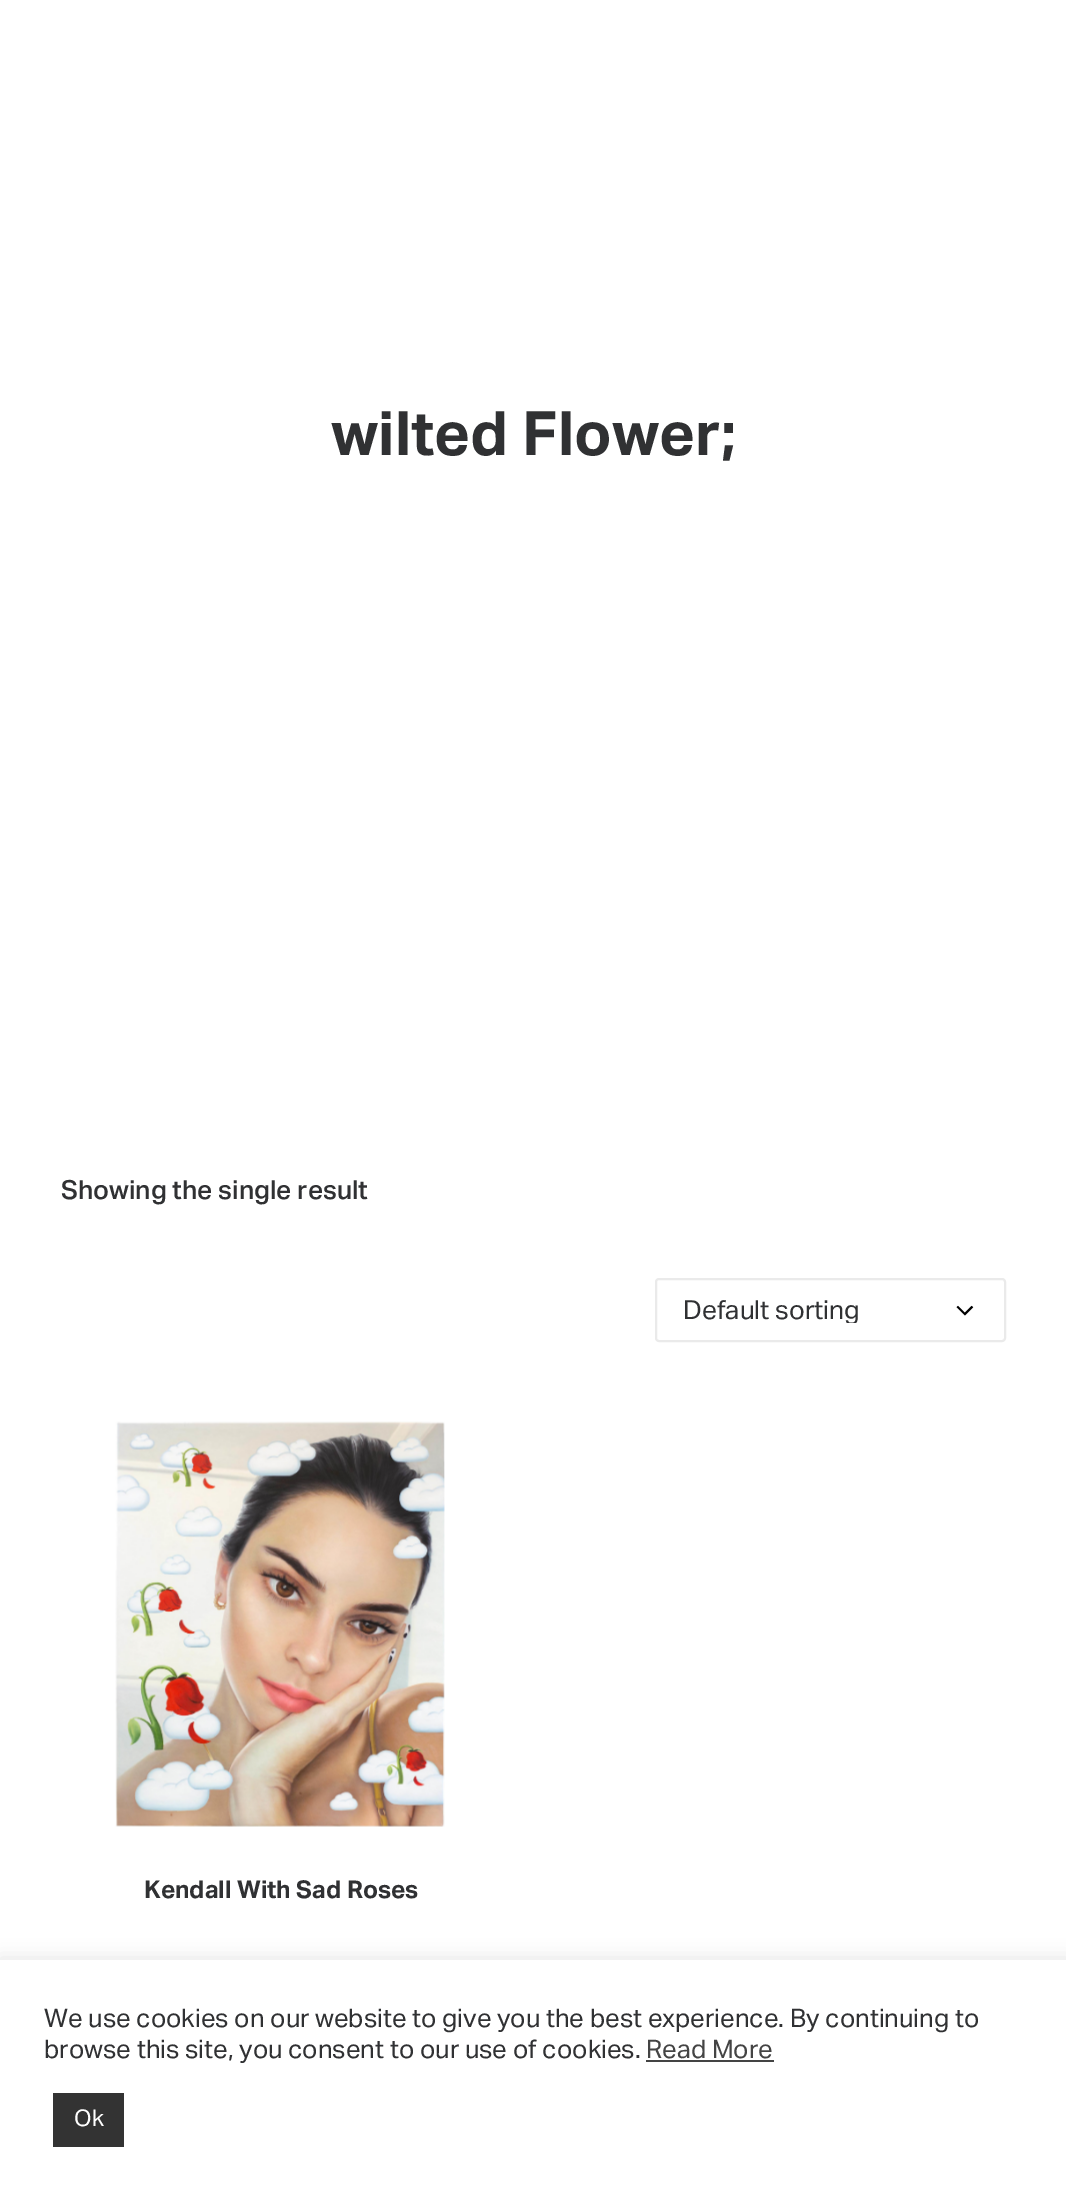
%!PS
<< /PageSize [1066 2199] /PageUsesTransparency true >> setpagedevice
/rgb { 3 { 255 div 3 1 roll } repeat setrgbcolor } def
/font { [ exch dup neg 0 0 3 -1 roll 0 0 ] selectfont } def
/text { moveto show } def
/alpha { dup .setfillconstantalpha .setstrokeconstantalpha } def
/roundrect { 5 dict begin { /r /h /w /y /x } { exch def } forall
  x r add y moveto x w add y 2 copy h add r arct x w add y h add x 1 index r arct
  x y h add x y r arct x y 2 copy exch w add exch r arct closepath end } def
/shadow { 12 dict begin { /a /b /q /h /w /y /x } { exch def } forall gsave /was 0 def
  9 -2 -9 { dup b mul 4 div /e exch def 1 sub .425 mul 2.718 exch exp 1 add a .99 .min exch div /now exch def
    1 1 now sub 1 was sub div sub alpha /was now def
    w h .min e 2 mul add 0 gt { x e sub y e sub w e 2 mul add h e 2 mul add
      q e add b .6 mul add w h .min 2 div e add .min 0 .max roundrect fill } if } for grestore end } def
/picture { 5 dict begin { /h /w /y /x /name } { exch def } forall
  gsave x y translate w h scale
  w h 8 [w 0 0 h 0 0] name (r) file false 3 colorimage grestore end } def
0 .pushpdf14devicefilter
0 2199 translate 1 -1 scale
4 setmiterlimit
255 255 255 rgb
0 0 1066 2199 rectfill
(img_01.rgb) 956 1305 18 11 picture
234 234 234 rgb
2 setlinewidth
656 1279 349 62 3 roundrect stroke
(img_02.rgb) 115 1421 330 406 picture
172 171 171 rgb
0 1958 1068 240 0 9 0.3 shadow
255 255 255 rgb
0 1960 1066 239 rectfill
68 68 68 rgb
646 2060 128 2 rectfill
51 51 51 rgb
53 2093 71 54 rectfill
/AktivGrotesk-Bold 61.25 font
48 49 51 rgb
(wilted Flower;) 331 455 text
/AktivGrotesk-Medium 26.25 font
(Showing the single result) 61 1199 text
gsave
683 1297 295 26 rectclip
/AktivGrotesk-Regular 26.25 font
(Default sorting) 683 1319 text
grestore
/AktivGrotesk-Bold 24.5 font
(Kendall With Sad Roses) 144 1898 text
/AktivGrotesk-Regular 25.65 font
(We use cookies on our website to give you the best experience. By continuing to) 44 2027 text
(browse this site, you consent to our use of cookies.) 44 2058 text
68 68 68 rgb
(Read More) 646 2058 text
/AktivGrotesk-Regular 23 font
255 255 255 rgb
(Ok) 74 2126 text
.poppdf14devicefilter showpage
